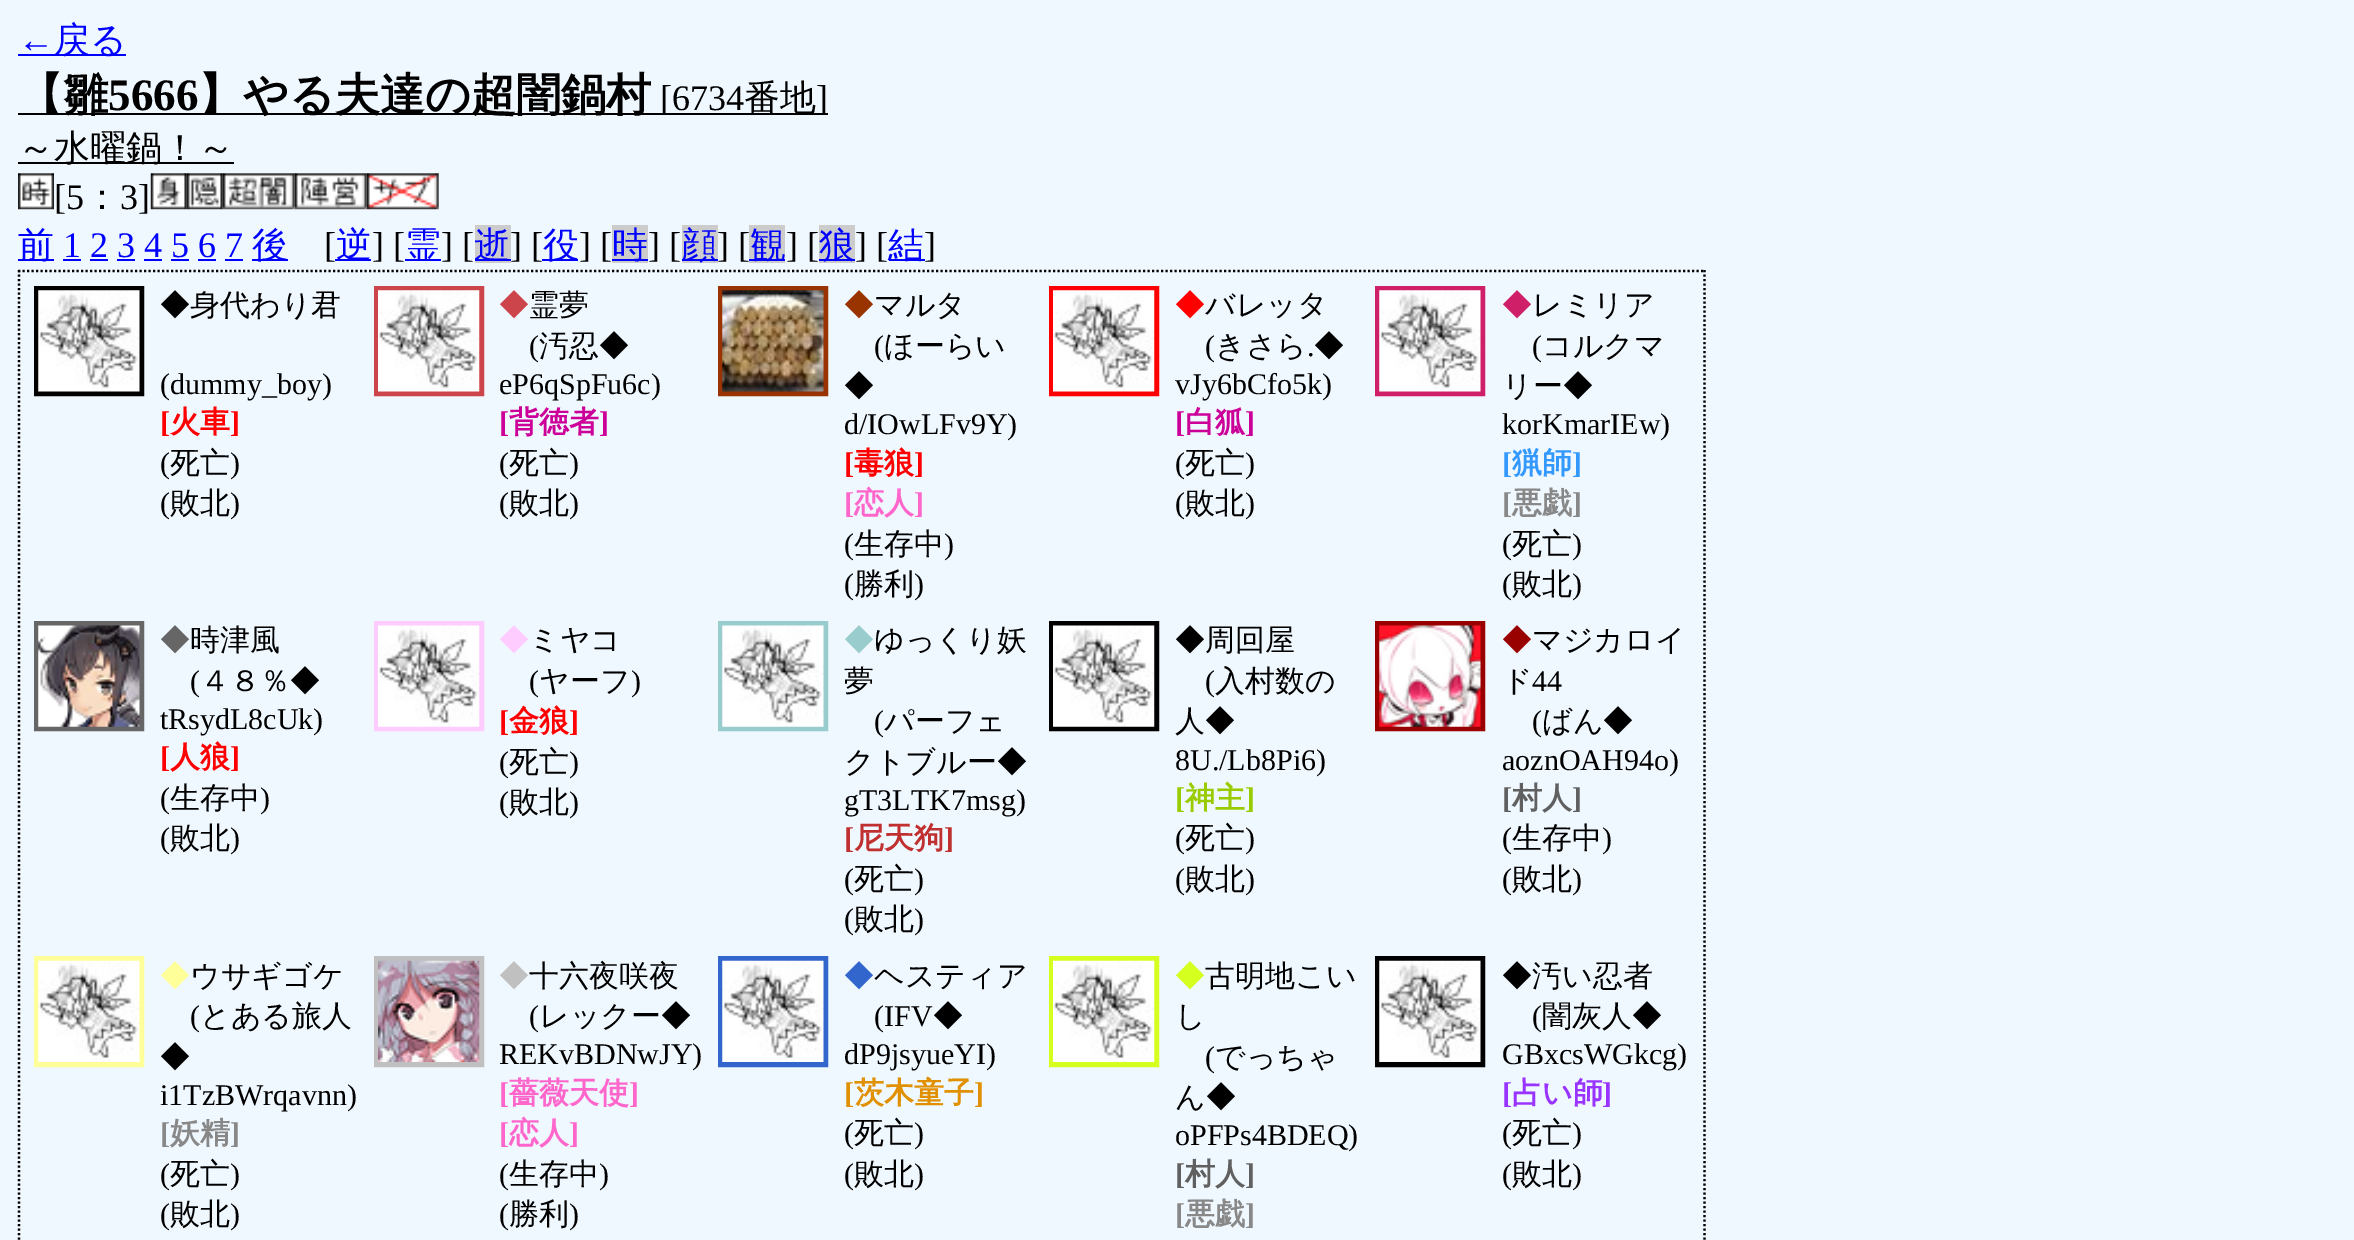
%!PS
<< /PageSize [2354 1240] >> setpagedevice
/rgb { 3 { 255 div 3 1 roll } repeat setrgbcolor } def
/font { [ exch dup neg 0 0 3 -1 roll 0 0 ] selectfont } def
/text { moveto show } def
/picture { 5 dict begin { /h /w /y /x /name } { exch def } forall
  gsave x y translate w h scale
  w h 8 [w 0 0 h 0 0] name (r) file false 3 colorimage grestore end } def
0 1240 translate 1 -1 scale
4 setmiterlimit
240 248 255 rgb
0 0 2354 1240 rectfill
0 0 255 rgb
18 54 108 2 rectfill
0 0 0 rgb
18 113 810 2 rectfill
18 162 216 2 rectfill
(img_01.rgb) 18 173 36 37 picture
(img_02.rgb) 150 173 37 37 picture
(img_03.rgb) 186 173 37 37 picture
(img_04.rgb) 222 173 73 37 picture
(img_05.rgb) 294 173 73 37 picture
(img_06.rgb) 366 173 73 37 picture
0 0 255 rgb
18 259 36 2 rectfill
63 259 18 2 rectfill
252 259 36 2 rectfill
335 259 36 2 rectfill
405 259 36 2 rectfill
204 204 204 rgb
475 225 36 38 rectfill
0 0 255 rgb
475 259 36 2 rectfill
542 259 36 2 rectfill
204 204 204 rgb
612 225 36 38 rectfill
0 0 255 rgb
612 259 36 2 rectfill
204 204 204 rgb
682 225 36 38 rectfill
0 0 255 rgb
682 259 36 2 rectfill
204 204 204 rgb
749 225 36 38 rectfill
0 0 255 rgb
749 259 36 2 rectfill
204 204 204 rgb
819 225 36 38 rectfill
0 0 255 rgb
819 259 36 2 rectfill
889 259 36 2 rectfill
90 259 18 2 rectfill
117 259 18 2 rectfill
144 259 18 2 rectfill
171 259 18 2 rectfill
198 259 18 2 rectfill
225 259 18 2 rectfill
0 0 0 rgb
2.2 setlinewidth
[2.25 2.25] 0 setdash
18 271 moveto 1687.5 0 rlineto stroke
1704.5 270 moveto 0 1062 rlineto stroke
19 270 moveto 0 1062 rlineto stroke
5 setlinewidth
[] 0 setdash
36.5 288.5 105 105 rectstroke
(img_07.rgb) 38 290 102 102 picture
204 69 74 rgb
376.5 288.5 105 105 rectstroke
(img_08.rgb) 378 290 102 102 picture
153 51 0 rgb
720.5 288.5 105 105 rectstroke
(img_09.rgb) 722 290 102 102 picture
255 0 0 rgb
1051.5 288.5 105 105 rectstroke
(img_10.rgb) 1053 290 102 102 picture
207 31 104 rgb
1377.5 288.5 105 105 rectstroke
(img_11.rgb) 1379 290 102 102 picture
102 102 102 rgb
36.5 623.5 105 105 rectstroke
(img_12.rgb) 38 625 102 102 picture
255 204 255 rgb
376.5 623.5 105 105 rectstroke
(img_13.rgb) 378 625 102 102 picture
153 204 204 rgb
720.5 623.5 105 105 rectstroke
(img_14.rgb) 722 625 102 102 picture
0 0 0 rgb
1051.5 623.5 105 105 rectstroke
(img_15.rgb) 1053 625 102 102 picture
153 0 0 rgb
1377.5 623.5 105 105 rectstroke
(img_16.rgb) 1379 625 102 102 picture
255 255 153 rgb
36.5 958.5 105 106 rectstroke
(img_17.rgb) 38 960 102 102 picture
192 192 192 rgb
376.5 958.5 105 106 rectstroke
(img_18.rgb) 378 960 102 102 picture
51 102 204 rgb
720.5 958.5 105 106 rectstroke
(img_19.rgb) 722 960 102 102 picture
212 255 31 rgb
1051.5 958.5 105 106 rectstroke
(img_20.rgb) 1053 960 102 102 picture
0 0 0 rgb
1377.5 958.5 105 106 rectstroke
(img_21.rgb) 1379 960 102 102 picture
/LiberationSerif-Regular 36 font
0 0 255 rgb
(←) 18 52 text
/WenQuanYiZenHei-Medium 36 font
(戻る) 54 52 text
/WenQuanYiZenHei-Bold 45 font
0 0 0 rgb
(【雛) 18 110 text
/LiberationSerif-Bold 45 font
(5666) 108 110 text
/WenQuanYiZenHei-Bold 45 font
(】やる夫達の超闇鍋村) 198 110 text
/LiberationSerif-Regular 36 font
([6734) 660 110 text
/WenQuanYiZenHei-Medium 36 font
(番地) 744 110 text
/LiberationSerif-Regular 36 font
(]) 816 110 text
/WenQuanYiZenHei-Medium 36 font
(～水曜鍋！～) 18 160 text
/LiberationSerif-Regular 36 font
([5) 54 209 text
/WenQuanYiZenHei-Medium 36 font
(：) 84 209 text
/LiberationSerif-Regular 36 font
(3]) 120 209 text
/WenQuanYiZenHei-Medium 36 font
0 0 255 rgb
(前) 18 257 text
/LiberationSerif-Regular 36 font
(1 2 3 4 5 6 7) 63 257 text
/WenQuanYiZenHei-Medium 36 font
(後) 252 257 text
/LiberationSerif-Regular 36 font
0 0 0 rgb
([) 324 257 text
/WenQuanYiZenHei-Medium 36 font
0 0 255 rgb
(逆) 336 257 text
/LiberationSerif-Regular 36 font
0 0 0 rgb
(] [) 372 257 text
/WenQuanYiZenHei-Medium 36 font
0 0 255 rgb
(霊) 405 257 text
/LiberationSerif-Regular 36 font
0 0 0 rgb
(] [) 441 257 text
/WenQuanYiZenHei-Medium 36 font
0 0 255 rgb
(逝) 474 257 text
/LiberationSerif-Regular 36 font
0 0 0 rgb
(] [) 510 257 text
/WenQuanYiZenHei-Medium 36 font
0 0 255 rgb
(役) 543 257 text
/LiberationSerif-Regular 36 font
0 0 0 rgb
(] [) 579 257 text
/WenQuanYiZenHei-Medium 36 font
0 0 255 rgb
(時) 612 257 text
/LiberationSerif-Regular 36 font
0 0 0 rgb
(] [) 648 257 text
/WenQuanYiZenHei-Medium 36 font
0 0 255 rgb
(顔) 681 257 text
/LiberationSerif-Regular 36 font
0 0 0 rgb
(] [) 717 257 text
/WenQuanYiZenHei-Medium 36 font
0 0 255 rgb
(観) 750 257 text
/LiberationSerif-Regular 36 font
0 0 0 rgb
(] [) 786 257 text
/WenQuanYiZenHei-Medium 36 font
0 0 255 rgb
(狼) 819 257 text
/LiberationSerif-Regular 36 font
0 0 0 rgb
(] [) 855 257 text
/WenQuanYiZenHei-Medium 36 font
0 0 255 rgb
(結) 888 257 text
/LiberationSerif-Regular 36 font
0 0 0 rgb
(]) 924 257 text
/WenQuanYiZenHei-Medium 30 font
(◆身代わり君) 160 315 text
/LiberationSerif-Regular 30 font
(\(dummy_boy\)) 160 394 text
/LiberationSerif-Bold 30 font
255 0 0 rgb
([) 160 432 text
/WenQuanYiZenHei-Bold 30 font
(火車) 170 432 text
/LiberationSerif-Bold 30 font
(]) 230 432 text
/LiberationSerif-Regular 30 font
0 0 0 rgb
(\() 160 473 text
/WenQuanYiZenHei-Medium 30 font
(死亡) 170 473 text
/LiberationSerif-Regular 30 font
(\)) 230 473 text
(\() 160 513 text
/WenQuanYiZenHei-Medium 30 font
(敗北) 170 513 text
/LiberationSerif-Regular 30 font
(\)) 230 513 text
/WenQuanYiZenHei-Medium 30 font
204 69 74 rgb
(◆) 499 315 text
0 0 0 rgb
(霊夢) 529 315 text
/LiberationSerif-Regular 30 font
(\() 529 356 text
/WenQuanYiZenHei-Medium 30 font
(汚忍◆) 539 356 text
/LiberationSerif-Regular 30 font
(eP6qSpFu6c\)) 499 394 text
/LiberationSerif-Bold 30 font
204 0 153 rgb
([) 499 432 text
/WenQuanYiZenHei-Bold 30 font
(背徳者) 509 432 text
/LiberationSerif-Bold 30 font
(]) 599 432 text
/LiberationSerif-Regular 30 font
0 0 0 rgb
(\() 499 473 text
/WenQuanYiZenHei-Medium 30 font
(死亡) 509 473 text
/LiberationSerif-Regular 30 font
(\)) 569 473 text
(\() 499 513 text
/WenQuanYiZenHei-Medium 30 font
(敗北) 509 513 text
/LiberationSerif-Regular 30 font
(\)) 569 513 text
/WenQuanYiZenHei-Medium 30 font
153 51 0 rgb
(◆) 844 315 text
0 0 0 rgb
(マルタ) 874 315 text
/LiberationSerif-Regular 30 font
(\() 874 356 text
/WenQuanYiZenHei-Medium 30 font
(ほーらい) 884 356 text
(◆) 844 396 text
/LiberationSerif-Regular 30 font
(d/IOwLFv9Y\)) 844 434 text
/LiberationSerif-Bold 30 font
255 0 0 rgb
([) 844 473 text
/WenQuanYiZenHei-Bold 30 font
(毒狼) 854 473 text
/LiberationSerif-Bold 30 font
(]) 914 473 text
255 102 204 rgb
([) 844 513 text
/WenQuanYiZenHei-Bold 30 font
(恋人) 854 513 text
/LiberationSerif-Bold 30 font
(]) 914 513 text
/LiberationSerif-Regular 30 font
0 0 0 rgb
(\() 844 554 text
/WenQuanYiZenHei-Medium 30 font
(生存中) 854 554 text
/LiberationSerif-Regular 30 font
(\)) 944 554 text
(\() 844 594 text
/WenQuanYiZenHei-Medium 30 font
(勝利) 854 594 text
/LiberationSerif-Regular 30 font
(\)) 914 594 text
/WenQuanYiZenHei-Medium 30 font
255 0 0 rgb
(◆) 1175 315 text
0 0 0 rgb
(バレッタ) 1205 315 text
/LiberationSerif-Regular 30 font
(\() 1205 356 text
/WenQuanYiZenHei-Medium 30 font
(きさら) 1215 356 text
/LiberationSerif-Regular 30 font
(.) 1307 356 text
/WenQuanYiZenHei-Medium 30 font
(◆) 1314 356 text
/LiberationSerif-Regular 30 font
(vJy6bCfo5k\)) 1175 394 text
/LiberationSerif-Bold 30 font
204 0 153 rgb
([) 1175 432 text
/WenQuanYiZenHei-Bold 30 font
(白狐) 1185 432 text
/LiberationSerif-Bold 30 font
(]) 1245 432 text
/LiberationSerif-Regular 30 font
0 0 0 rgb
(\() 1175 473 text
/WenQuanYiZenHei-Medium 30 font
(死亡) 1185 473 text
/LiberationSerif-Regular 30 font
(\)) 1245 473 text
(\() 1175 513 text
/WenQuanYiZenHei-Medium 30 font
(敗北) 1185 513 text
/LiberationSerif-Regular 30 font
(\)) 1245 513 text
/WenQuanYiZenHei-Medium 30 font
207 31 104 rgb
(◆) 1502 315 text
0 0 0 rgb
(レミリア) 1532 315 text
/LiberationSerif-Regular 30 font
(\() 1532 356 text
/WenQuanYiZenHei-Medium 30 font
(コルクマ) 1542 356 text
(リー◆) 1502 396 text
/LiberationSerif-Regular 30 font
(korKmarIEw\)) 1502 434 text
/LiberationSerif-Bold 30 font
51 153 255 rgb
([) 1502 473 text
/WenQuanYiZenHei-Bold 30 font
(猟師) 1512 473 text
/LiberationSerif-Bold 30 font
(]) 1572 473 text
136 136 136 rgb
([) 1502 513 text
/WenQuanYiZenHei-Bold 30 font
(悪戯) 1512 513 text
/LiberationSerif-Bold 30 font
(]) 1572 513 text
/LiberationSerif-Regular 30 font
0 0 0 rgb
(\() 1502 554 text
/WenQuanYiZenHei-Medium 30 font
(死亡) 1512 554 text
/LiberationSerif-Regular 30 font
(\)) 1572 554 text
(\() 1502 594 text
/WenQuanYiZenHei-Medium 30 font
(敗北) 1512 594 text
/LiberationSerif-Regular 30 font
(\)) 1572 594 text
/WenQuanYiZenHei-Medium 30 font
102 102 102 rgb
(◆) 160 650 text
0 0 0 rgb
(時津風) 190 650 text
/LiberationSerif-Regular 30 font
(\() 190 691 text
/WenQuanYiZenHei-Medium 30 font
(４８％◆) 200 691 text
/LiberationSerif-Regular 30 font
(tRsydL8cUk\)) 160 729 text
/LiberationSerif-Bold 30 font
255 0 0 rgb
([) 160 767 text
/WenQuanYiZenHei-Bold 30 font
(人狼) 170 767 text
/LiberationSerif-Bold 30 font
(]) 230 767 text
/LiberationSerif-Regular 30 font
0 0 0 rgb
(\() 160 808 text
/WenQuanYiZenHei-Medium 30 font
(生存中) 170 808 text
/LiberationSerif-Regular 30 font
(\)) 260 808 text
(\() 160 848 text
/WenQuanYiZenHei-Medium 30 font
(敗北) 170 848 text
/LiberationSerif-Regular 30 font
(\)) 230 848 text
/WenQuanYiZenHei-Medium 30 font
255 204 255 rgb
(◆) 499 650 text
0 0 0 rgb
(ミヤコ) 529 650 text
/LiberationSerif-Regular 30 font
(\() 529 691 text
/WenQuanYiZenHei-Medium 30 font
(ヤーフ) 539 691 text
/LiberationSerif-Regular 30 font
(\)) 631 691 text
/LiberationSerif-Bold 30 font
255 0 0 rgb
([) 499 731 text
/WenQuanYiZenHei-Bold 30 font
(金狼) 509 731 text
/LiberationSerif-Bold 30 font
(]) 569 731 text
/LiberationSerif-Regular 30 font
0 0 0 rgb
(\() 499 772 text
/WenQuanYiZenHei-Medium 30 font
(死亡) 509 772 text
/LiberationSerif-Regular 30 font
(\)) 569 772 text
(\() 499 812 text
/WenQuanYiZenHei-Medium 30 font
(敗北) 509 812 text
/LiberationSerif-Regular 30 font
(\)) 569 812 text
/WenQuanYiZenHei-Medium 30 font
153 204 204 rgb
(◆) 844 650 text
0 0 0 rgb
(ゆっくり妖) 874 650 text
(夢) 844 691 text
/LiberationSerif-Regular 30 font
(\() 874 731 text
/WenQuanYiZenHei-Medium 30 font
(パーフェ) 884 731 text
(クトブルー◆) 844 772 text
/LiberationSerif-Regular 30 font
(gT3LTK7msg\)) 844 810 text
/LiberationSerif-Bold 30 font
192 48 48 rgb
([) 844 848 text
/WenQuanYiZenHei-Bold 30 font
(尼天狗) 854 848 text
/LiberationSerif-Bold 30 font
(]) 944 848 text
/LiberationSerif-Regular 30 font
0 0 0 rgb
(\() 844 889 text
/WenQuanYiZenHei-Medium 30 font
(死亡) 854 889 text
/LiberationSerif-Regular 30 font
(\)) 914 889 text
(\() 844 929 text
/WenQuanYiZenHei-Medium 30 font
(敗北) 854 929 text
/LiberationSerif-Regular 30 font
(\)) 914 929 text
/WenQuanYiZenHei-Medium 30 font
(◆周回屋) 1175 650 text
/LiberationSerif-Regular 30 font
(\() 1205 691 text
/WenQuanYiZenHei-Medium 30 font
(入村数の) 1215 691 text
(人◆) 1175 731 text
/LiberationSerif-Regular 30 font
(8U./Lb8Pi6\)) 1175 770 text
/LiberationSerif-Bold 30 font
153 204 0 rgb
([) 1175 808 text
/WenQuanYiZenHei-Bold 30 font
(神主) 1185 808 text
/LiberationSerif-Bold 30 font
(]) 1245 808 text
/LiberationSerif-Regular 30 font
0 0 0 rgb
(\() 1175 848 text
/WenQuanYiZenHei-Medium 30 font
(死亡) 1185 848 text
/LiberationSerif-Regular 30 font
(\)) 1245 848 text
(\() 1175 889 text
/WenQuanYiZenHei-Medium 30 font
(敗北) 1185 889 text
/LiberationSerif-Regular 30 font
(\)) 1245 889 text
/WenQuanYiZenHei-Medium 30 font
153 0 0 rgb
(◆) 1502 650 text
0 0 0 rgb
(マジカロイ) 1532 650 text
(ド) 1502 691 text
/LiberationSerif-Regular 30 font
(44) 1532 691 text
(\() 1532 731 text
/WenQuanYiZenHei-Medium 30 font
(ばん◆) 1542 731 text
/LiberationSerif-Regular 30 font
(aoznOAH94o\)) 1502 770 text
/LiberationSerif-Bold 30 font
96 96 96 rgb
([) 1502 808 text
/WenQuanYiZenHei-Bold 30 font
(村人) 1512 808 text
/LiberationSerif-Bold 30 font
(]) 1572 808 text
/LiberationSerif-Regular 30 font
0 0 0 rgb
(\() 1502 848 text
/WenQuanYiZenHei-Medium 30 font
(生存中) 1512 848 text
/LiberationSerif-Regular 30 font
(\)) 1602 848 text
(\() 1502 889 text
/WenQuanYiZenHei-Medium 30 font
(敗北) 1512 889 text
/LiberationSerif-Regular 30 font
(\)) 1572 889 text
/WenQuanYiZenHei-Medium 30 font
255 255 153 rgb
(◆) 160 986 text
0 0 0 rgb
(ウサギゴケ) 190 986 text
/LiberationSerif-Regular 30 font
(\() 190 1026 text
/WenQuanYiZenHei-Medium 30 font
(とある旅人) 200 1026 text
(◆) 160 1067 text
/LiberationSerif-Regular 30 font
(i1TzBWrqavnn\)) 160 1105 text
/LiberationSerif-Bold 30 font
136 136 136 rgb
([) 160 1143 text
/WenQuanYiZenHei-Bold 30 font
(妖精) 170 1143 text
/LiberationSerif-Bold 30 font
(]) 230 1143 text
/LiberationSerif-Regular 30 font
0 0 0 rgb
(\() 160 1184 text
/WenQuanYiZenHei-Medium 30 font
(死亡) 170 1184 text
/LiberationSerif-Regular 30 font
(\)) 230 1184 text
(\() 160 1224 text
/WenQuanYiZenHei-Medium 30 font
(敗北) 170 1224 text
/LiberationSerif-Regular 30 font
(\)) 230 1224 text
/WenQuanYiZenHei-Medium 30 font
192 192 192 rgb
(◆) 499 986 text
0 0 0 rgb
(十六夜咲夜) 529 986 text
/LiberationSerif-Regular 30 font
(\() 529 1026 text
/WenQuanYiZenHei-Medium 30 font
(レックー◆) 539 1026 text
/LiberationSerif-Regular 30 font
(REKvBDNwJY\)) 499 1064 text
/LiberationSerif-Bold 30 font
255 102 204 rgb
([) 499 1103 text
/WenQuanYiZenHei-Bold 30 font
(薔薇天使) 509 1103 text
/LiberationSerif-Bold 30 font
(]) 629 1103 text
([) 499 1143 text
/WenQuanYiZenHei-Bold 30 font
(恋人) 509 1143 text
/LiberationSerif-Bold 30 font
(]) 569 1143 text
/LiberationSerif-Regular 30 font
0 0 0 rgb
(\() 499 1184 text
/WenQuanYiZenHei-Medium 30 font
(生存中) 509 1184 text
/LiberationSerif-Regular 30 font
(\)) 599 1184 text
(\() 499 1224 text
/WenQuanYiZenHei-Medium 30 font
(勝利) 509 1224 text
/LiberationSerif-Regular 30 font
(\)) 569 1224 text
/WenQuanYiZenHei-Medium 30 font
51 102 204 rgb
(◆) 844 986 text
0 0 0 rgb
(ヘスティア) 874 986 text
/LiberationSerif-Regular 30 font
(\(IFV) 874 1026 text
/WenQuanYiZenHei-Medium 30 font
(◆) 933 1026 text
/LiberationSerif-Regular 30 font
(dP9jsyueYI\)) 844 1064 text
/LiberationSerif-Bold 30 font
224 144 0 rgb
([) 844 1103 text
/WenQuanYiZenHei-Bold 30 font
(茨木童子) 854 1103 text
/LiberationSerif-Bold 30 font
(]) 974 1103 text
/LiberationSerif-Regular 30 font
0 0 0 rgb
(\() 844 1143 text
/WenQuanYiZenHei-Medium 30 font
(死亡) 854 1143 text
/LiberationSerif-Regular 30 font
(\)) 914 1143 text
(\() 844 1184 text
/WenQuanYiZenHei-Medium 30 font
(敗北) 854 1184 text
/LiberationSerif-Regular 30 font
(\)) 914 1184 text
/WenQuanYiZenHei-Medium 30 font
212 255 31 rgb
(◆) 1175 986 text
0 0 0 rgb
(古明地こい) 1205 986 text
(し) 1175 1026 text
/LiberationSerif-Regular 30 font
(\() 1205 1067 text
/WenQuanYiZenHei-Medium 30 font
(でっちゃ) 1215 1067 text
(ん◆) 1175 1107 text
/LiberationSerif-Regular 30 font
(oPFPs4BDEQ\)) 1175 1145 text
/LiberationSerif-Bold 30 font
96 96 96 rgb
([) 1175 1184 text
/WenQuanYiZenHei-Bold 30 font
(村人) 1185 1184 text
/LiberationSerif-Bold 30 font
(]) 1245 1184 text
136 136 136 rgb
([) 1175 1224 text
/WenQuanYiZenHei-Bold 30 font
(悪戯) 1185 1224 text
/LiberationSerif-Bold 30 font
(]) 1245 1224 text
/WenQuanYiZenHei-Medium 30 font
0 0 0 rgb
(◆汚い忍者) 1502 986 text
/LiberationSerif-Regular 30 font
(\() 1532 1026 text
/WenQuanYiZenHei-Medium 30 font
(闇灰人◆) 1542 1026 text
/LiberationSerif-Regular 30 font
(GBxcsWGkcg\)) 1502 1064 text
/LiberationSerif-Bold 30 font
153 51 255 rgb
([) 1502 1103 text
/WenQuanYiZenHei-Bold 30 font
(占い師) 1512 1103 text
/LiberationSerif-Bold 30 font
(]) 1602 1103 text
/LiberationSerif-Regular 30 font
0 0 0 rgb
(\() 1502 1143 text
/WenQuanYiZenHei-Medium 30 font
(死亡) 1512 1143 text
/LiberationSerif-Regular 30 font
(\)) 1572 1143 text
(\() 1502 1184 text
/WenQuanYiZenHei-Medium 30 font
(敗北) 1512 1184 text
/LiberationSerif-Regular 30 font
(\)) 1572 1184 text
showpage
